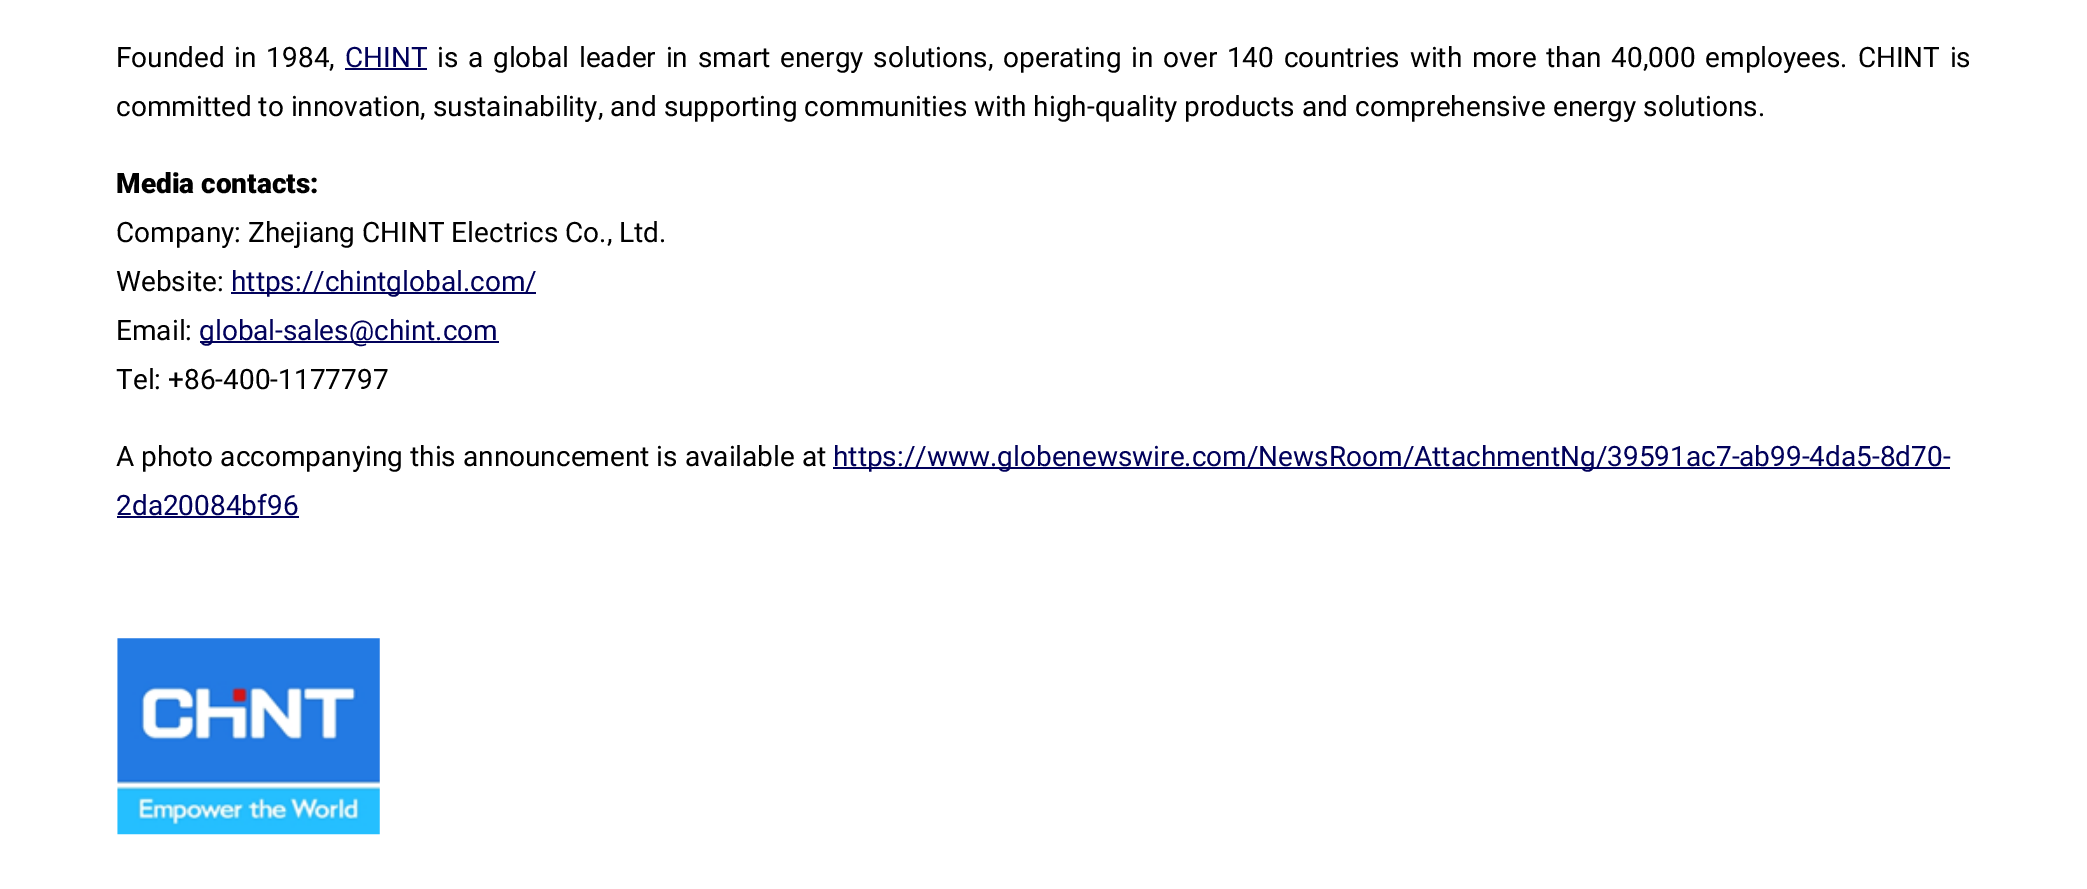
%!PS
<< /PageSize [2087 889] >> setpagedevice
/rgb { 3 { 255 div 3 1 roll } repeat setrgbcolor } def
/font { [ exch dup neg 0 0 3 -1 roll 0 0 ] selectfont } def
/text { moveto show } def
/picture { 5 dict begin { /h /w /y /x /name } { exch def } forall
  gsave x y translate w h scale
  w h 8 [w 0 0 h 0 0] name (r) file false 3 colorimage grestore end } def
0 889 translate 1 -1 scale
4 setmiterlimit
255 255 255 rgb
0 0 2087 889 rectfill
1 1 91 rgb
345 68 82 2 rectfill
231 292 305 2 rectfill
200 341 299 2 rectfill
833 467 1117 2 rectfill
117 516 182 2 rectfill
(img_01.rgb) 117 638 263 197 picture
/Roboto-Regular 28 font
0 0 0 rgb
116 67 moveto 2.75 0 32 (Founded in 1984,) widthshow
1 1 91 rgb
(CHINT) 345 67 text
0 0 0 rgb
437 67 moveto 2.75 0 32 (is a global leader in smart energy solutions, operating in over 140 countries with more than 40,000 employees. CHINT is) widthshow
(committed to innovation, sustainability, and supporting communities with high-quality products and comprehensive energy solutions.) 116 116 text
/Roboto-Black 28 font
(Media contacts:) 116 193 text
/Roboto-Regular 28 font
(Company: Zhejiang CHINT Electrics Co., Ltd.) 116 242 text
(Website:) 116 291 text
1 1 91 rgb
(https://chintglobal.com/) 231 291 text
0 0 0 rgb
(Email:) 116 340 text
1 1 91 rgb
(global-sales@chint.com) 199 340 text
0 0 0 rgb
(Tel: +86-400-1177797) 116 389 text
(A photo accompanying this announcement is available at) 116 466 text
1 1 91 rgb
(https://www.globenewswire.com/NewsRoom/AttachmentNg/39591ac7-ab99-4da5-8d70-) 833 466 text
(2da20084bf96) 116 515 text
showpage
